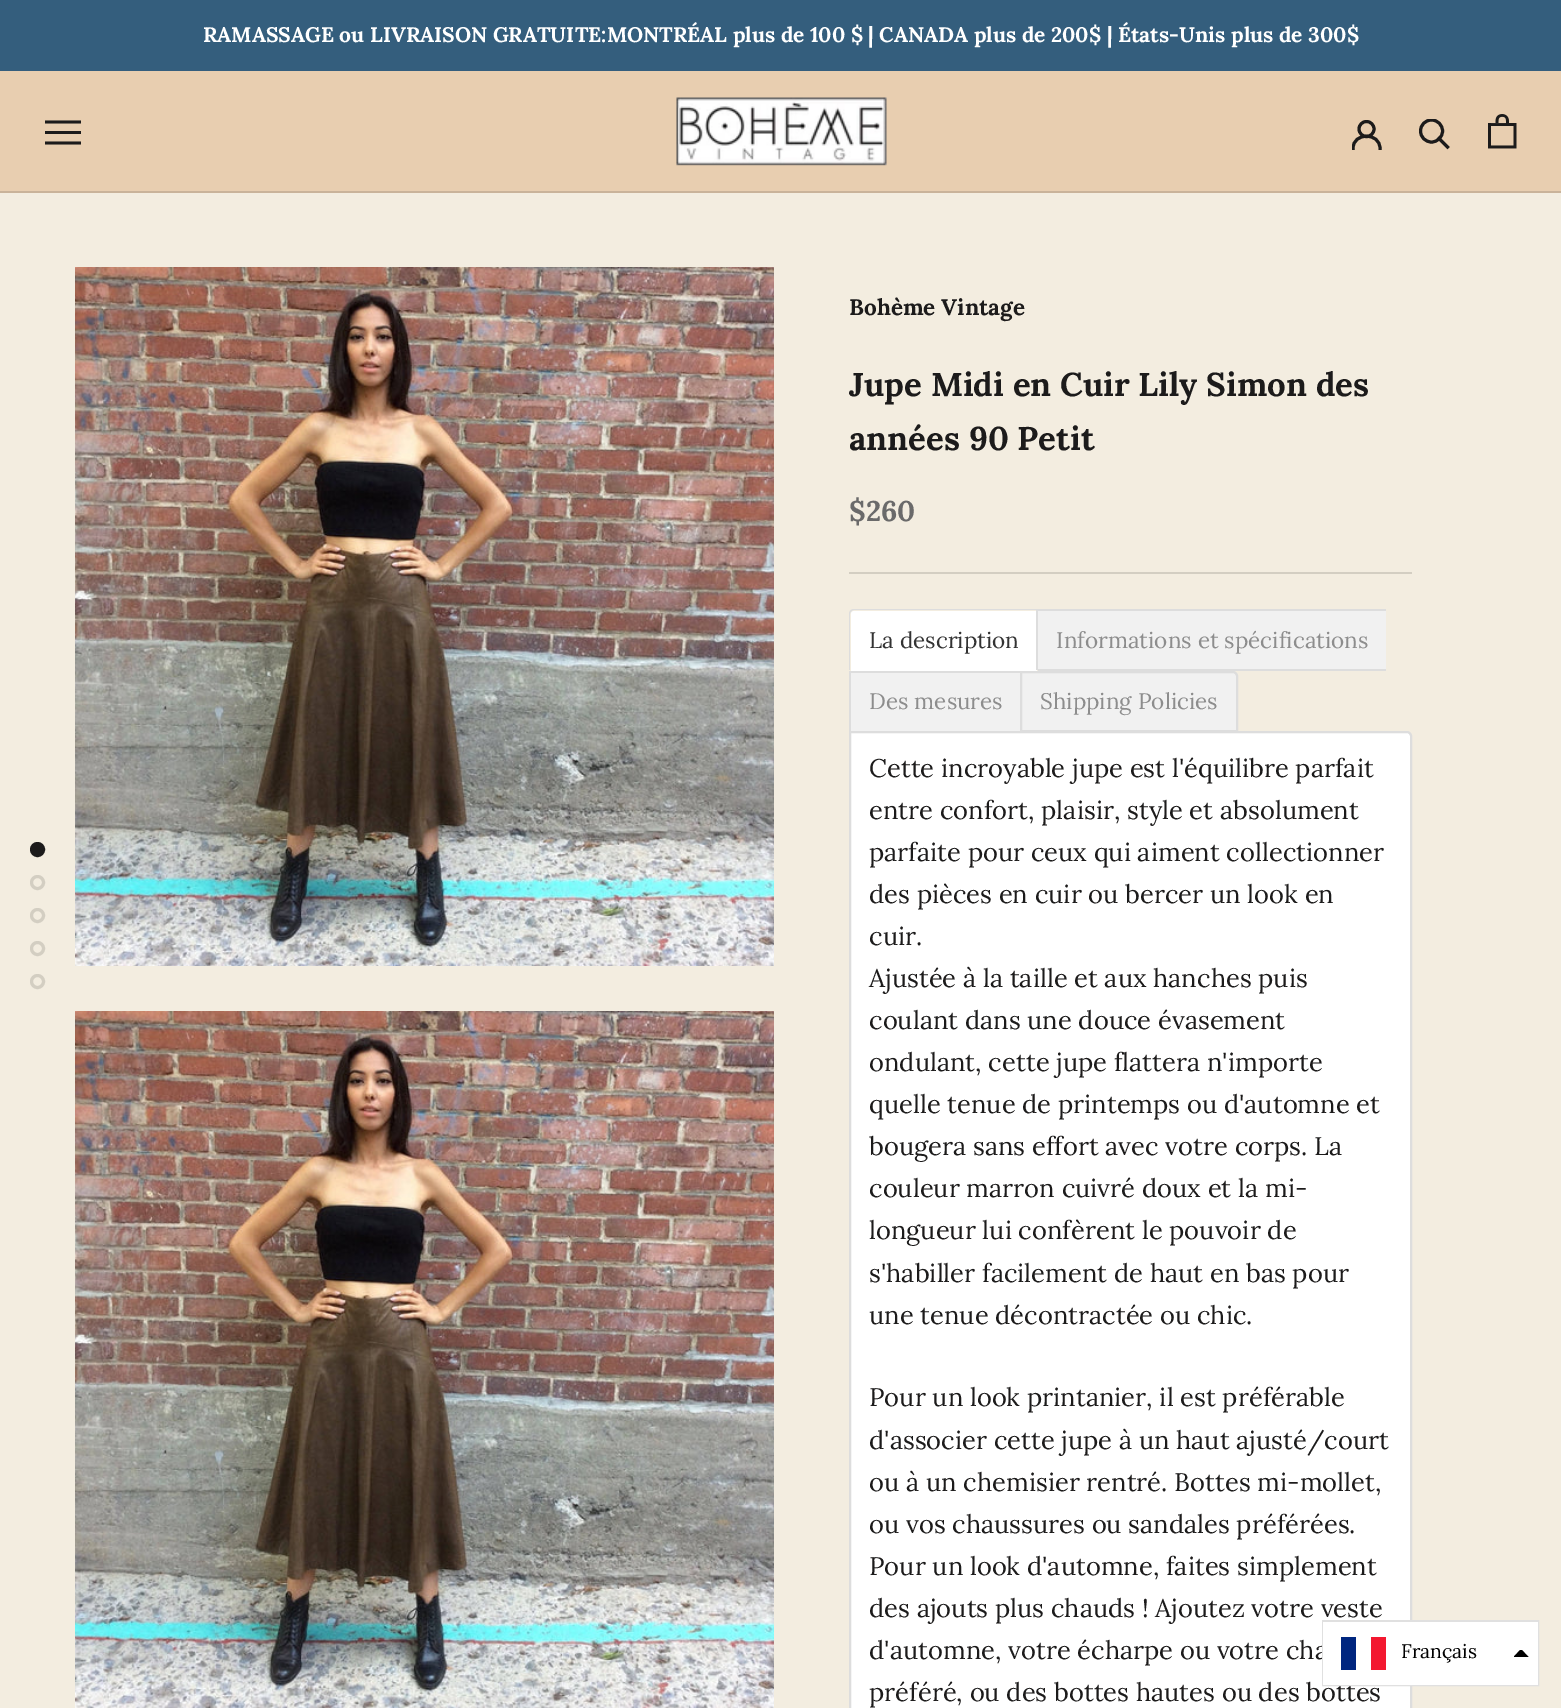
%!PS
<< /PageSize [1561 1708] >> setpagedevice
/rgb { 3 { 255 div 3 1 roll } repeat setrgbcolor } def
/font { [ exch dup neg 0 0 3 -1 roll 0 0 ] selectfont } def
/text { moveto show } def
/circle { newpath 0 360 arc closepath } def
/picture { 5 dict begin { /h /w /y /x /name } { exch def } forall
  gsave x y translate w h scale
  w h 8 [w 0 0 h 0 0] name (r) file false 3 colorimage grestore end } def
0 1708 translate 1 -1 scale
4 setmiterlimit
243 237 224 rgb
0 0 1561 1708 rectfill
52 94 125 rgb
0 0 1561 71 rectfill
232 206 176 rgb
0 71 1561 120 rectfill
201 179 154 rgb
0 191 1561 2 rectfill
28 27 27 rgb
45 144.5 moveto 0 -3 rlineto 36 0 rlineto 0 3 rlineto closepath 45 131 moveto 36 0 rlineto 0 3 rlineto -36 0 rlineto closepath 45 120.5 moveto 36 0 rlineto 0 3 rlineto -36 0 rlineto closepath fill
(img_01.rgb) 676 97 211 69 picture
gsave
1352 120 30 30 rectclip
3 setlinewidth
2 setlinecap
1353 148.5 moveto 0 -16.5 27 -16.5 27 0 rcurveto stroke
grestore
3 setlinewidth
1366.5 129 7.5 circle stroke
2 setlinecap
1447.5 147 moveto -8.5 -8.5 rlineto stroke
gsave
1419 119 32 31 rectclip
0 setlinecap
1431.5 131 11 circle stroke
grestore
(img_02.rgb) 1488 114 29 35 picture
37.5 849.5 6 circle gsave fill grestore
0 setlinecap
stroke
211 206 194 rgb
37.5 882.5 6 circle stroke
37.5 915.5 6 circle stroke
37.5 948.5 6 circle stroke
37.5 981.5 6 circle stroke
(img_03.rgb) 75 267 699 699 picture
(img_04.rgb) 75 1011 699 697 picture
849 572 563 2 rectfill
255 255 255 rgb
854 611 moveto 183 0 rlineto 0 60 rlineto -186 0 rlineto 0 -57 rlineto 0 -1.5 1.5 -3 3 -3 rcurveto closepath fill
221 221 221 rgb
854 609 moveto 184 0 rlineto 0 61 rlineto -189 0 rlineto 0 -56 rlineto 0 -3 2 -5 5 -5 rcurveto closepath 854 610 moveto 182 0 rlineto 0 60 rlineto -186 0 rlineto 0 -56 rlineto 0 -2 2 -4 4 -4 rcurveto closepath eofill
241 241 241 rgb
1038 611 348 58 rectfill
221 221 221 rgb
1038 609 348 2 rectfill
1038 669 348 2 rectfill
241 241 241 rgb
851 673 169 58 rectfill
221 221 221 rgb
849 671 171 2 rectfill
255 255 255 rgb
850 732 moveto 557 0 rlineto 2 0 4 2 4 4 rcurveto 0 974 rlineto 0 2 -2 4 -4 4 rcurveto -553 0 rlineto -2 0 -4 -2 -4 -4 rcurveto closepath gsave fill grestore
221 221 221 rgb
2 setlinewidth
stroke
849 671 2 61 rectfill
241 241 241 rgb
1021 672 moveto 212 0 rlineto 2 0 4 2 4 4 rcurveto 0 55 rlineto -216 0 rlineto closepath gsave fill grestore
221 221 221 rgb
stroke
/Lora-Bold 21 font
255 255 255 rgb
(RAMASSAGE ou LIVRAISON GRATUITE:MONTRÉAL plus de 100 $ | CANADA plus de 200$ | États-Unis plus de 300$) 203 42 text
/Lora-Bold 22.5 font
28 27 27 rgb
(Bohème Vintage) 849 315 text
/Lora-Bold 33 font
(Jupe Midi en Cuir Lily Simon des) 849 396 text
(années 90 Petit) 849 450 text
/Lora-Bold 28.5 font
106 106 106 rgb
($260) 849 521 text
/Lora-Regular 22.5 font
51 51 51 rgb
(La description) 869 648 text
141 141 141 rgb
(Informations et spécifications) 1056 648 text
(Des mesures) 869 709 text
(Shipping Policies) 1040 709 text
/Lora-Regular 25.5 font
28 27 27 rgb
(Cette incroyable jupe est l'équilibre parfait) 869 777 text
(entre confort, plaisir, style et absolument) 869 819 text
(parfaite pour ceux qui aiment collectionner) 869 861 text
(des pièces en cuir ou bercer un look en) 869 903 text
(cuir.) 869 945 text
(Ajustée à la taille et aux hanches puis) 869 987 text
(coulant dans une douce évasement) 869 1029 text
(ondulant, cette jupe flattera n'importe) 869 1071 text
(quelle tenue de printemps ou d'automne et) 869 1113 text
(bougera sans effort avec votre corps. La) 869 1155 text
(couleur marron cuivré doux et la mi-) 869 1197 text
(longueur lui confèrent le pouvoir de) 869 1239 text
(s'habiller facilement de haut en bas pour) 869 1282 text
(une tenue décontractée ou chic.) 869 1324 text
(Pour un look printanier, il est préférable) 869 1406 text
(d'associer cette jupe à un haut ajusté/court) 869 1449 text
(ou à un chemisier rentré. Bottes mi-mollet,) 869 1491 text
(ou vos chaussures ou sandales préférées.) 869 1533 text
(Pour un look d'automne, faites simplement) 869 1575 text
(des ajouts plus chauds ! Ajoutez votre veste) 869 1617 text
(d'automne, votre écharpe ou votre cha) 869 1659 text
(préféré, ou des bottes hautes ou des bottes) 869 1701 text
224 224 224 rgb
1323 1621 215 64 rectstroke
255 255 255 rgb
1323 1622 215 63 rectfill
0 38 127 rgb
1341 1637 15 33 rectfill
243 24 48 rgb
1371 1637 15 33 rectfill
/Lora-Regular 19.5 font
0 0 0 rgb
(Français) 1401 1658 text
gsave
1514 1650 15 8 rectclip
1513.5 1657 moveto 7.5 -8 rlineto 7.5 8 rlineto closepath eofill
grestore
showpage
